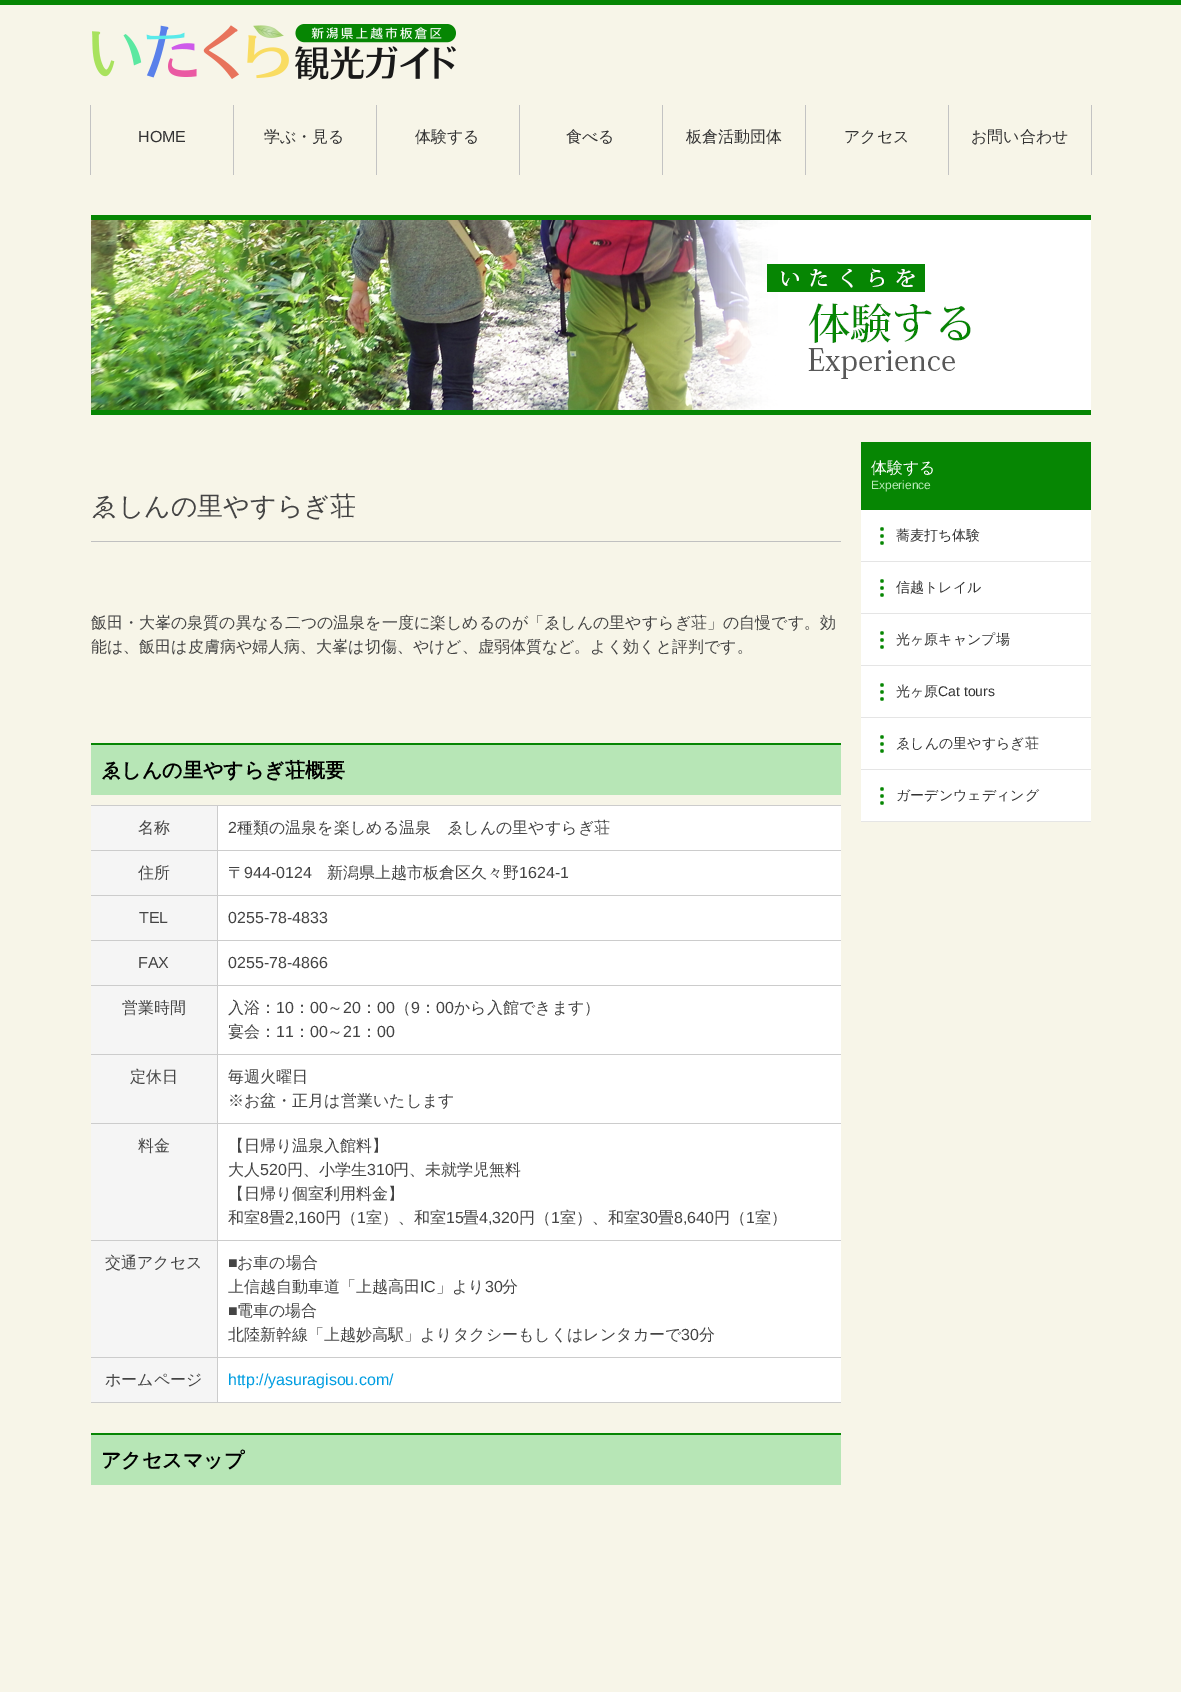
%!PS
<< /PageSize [1181 1692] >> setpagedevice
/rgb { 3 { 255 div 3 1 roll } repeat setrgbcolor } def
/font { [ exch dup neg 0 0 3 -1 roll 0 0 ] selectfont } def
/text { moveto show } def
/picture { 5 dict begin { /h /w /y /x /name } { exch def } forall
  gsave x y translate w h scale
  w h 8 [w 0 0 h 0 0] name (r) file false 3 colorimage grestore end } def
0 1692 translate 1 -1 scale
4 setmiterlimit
247 245 232 rgb
0 0 1181 1692 rectfill
6 134 3 rgb
0 0 1181 5 rectfill
(img_01.rgb) 92 24 364 56 picture
195 195 195 rgb
1091 105 1 70 rectfill
90 105 1 70 rectfill
233 105 1 70 rectfill
376 105 1 70 rectfill
519 105 1 70 rectfill
662 105 1 70 rectfill
805 105 1 70 rectfill
948 105 1 70 rectfill
(img_02.rgb) 91 215 1000 200 picture
192 192 192 rgb
91 541 750 1 rectfill
183 230 182 rgb
91 745 750 50 rectfill
6 134 3 rgb
91 743 750 2 rectfill
245 245 245 rgb
91 806 126 44 rectfill
204 204 204 rgb
91 805 750 1 rectfill
91 850 750 1 rectfill
91 895 750 1 rectfill
91 940 750 1 rectfill
91 985 750 1 rectfill
91 1054 750 1 rectfill
91 1123 750 1 rectfill
91 1240 750 1 rectfill
91 1357 750 1 rectfill
217 1402 624 1 rectfill
217 1357 1 46 rectfill
217 1240 1 118 rectfill
217 1123 1 118 rectfill
217 1054 1 70 rectfill
217 985 1 70 rectfill
217 940 1 46 rectfill
217 895 1 46 rectfill
217 850 1 46 rectfill
217 805 1 46 rectfill
255 255 255 rgb
218 806 623 44 rectfill
245 245 245 rgb
91 851 126 44 rectfill
255 255 255 rgb
218 851 623 44 rectfill
245 245 245 rgb
91 896 126 44 rectfill
255 255 255 rgb
218 896 623 44 rectfill
245 245 245 rgb
91 941 126 44 rectfill
255 255 255 rgb
218 941 623 44 rectfill
245 245 245 rgb
91 986 126 68 rectfill
255 255 255 rgb
218 986 623 68 rectfill
245 245 245 rgb
91 1055 126 68 rectfill
255 255 255 rgb
218 1055 623 68 rectfill
245 245 245 rgb
91 1124 126 116 rectfill
255 255 255 rgb
218 1124 623 116 rectfill
245 245 245 rgb
91 1241 126 116 rectfill
255 255 255 rgb
218 1241 623 116 rectfill
245 245 245 rgb
91 1358 126 44 rectfill
204 204 204 rgb
91 1402 127 1 rectfill
255 255 255 rgb
218 1358 623 44 rectfill
183 230 182 rgb
91 1435 750 50 rectfill
6 134 3 rgb
91 1433 750 2 rectfill
861 442 230 68 rectfill
(img_03.rgb) 861 510 230 51 picture
229 229 229 rgb
861 561 230 1 rectfill
(img_03.rgb) 861 562 230 51 picture
861 613 230 1 rectfill
(img_03.rgb) 861 614 230 51 picture
861 665 230 1 rectfill
(img_03.rgb) 861 666 230 51 picture
861 717 230 1 rectfill
(img_03.rgb) 861 718 230 51 picture
861 769 230 1 rectfill
(img_03.rgb) 861 770 230 51 picture
861 821 230 1 rectfill
/LiberationSans-Regular 16 font
51 51 51 rgb
(HOME) 138 142 text
/WenQuanYiZenHei-Medium 16 font
(学ぶ・見る) 264 142 text
(体験する) 415 142 text
(食べる) 566 142 text
(板倉活動団体) 686 142 text
(アクセス) 844 142 text
(お問い合わせ) 971 142 text
/WenQuanYiZenHei-Medium 26 font
68 68 68 rgb
(ゑしんの里やすらぎ荘) 91 515 text
/WenQuanYiZenHei-Medium 16 font
(飯田・大峯の泉質の異なる二つの温泉を一度に楽しめるのが「ゑしんの里やすらぎ荘」の自慢です。効) 91 628 text
(能は、飯田は皮膚病や婦人病、大峯は切傷、やけど、虚弱体質など。よく効くと評判です。) 91 652 text
/WenQuanYiZenHei-Bold 20 font
0 0 0 rgb
(ゑしんの里やすらぎ荘概要) 101 777 text
/WenQuanYiZenHei-Medium 16 font
68 68 68 rgb
(名称) 138 833 text
/LiberationSans-Regular 16 font
(2) 228 833 text
/WenQuanYiZenHei-Medium 16 font
(種類の温泉を楽しめる温泉　ゑしんの里やすらぎ荘) 237 833 text
(住所) 138 878 text
(〒) 228 878 text
/LiberationSans-Regular 16 font
(944-0124) 244 878 text
/WenQuanYiZenHei-Medium 16 font
(新潟県上越市板倉区久々野) 327 878 text
/LiberationSans-Regular 16 font
(1624-1) 519 878 text
(TEL) 139 923 text
(0255-78-4833) 228 923 text
(FAX) 138 968 text
(0255-78-4866) 228 968 text
/WenQuanYiZenHei-Medium 16 font
(営業時間) 122 1013 text
(入浴：) 228 1013 text
/LiberationSans-Regular 16 font
(10) 276 1013 text
/WenQuanYiZenHei-Medium 16 font
(：) 294 1013 text
/LiberationSans-Regular 16 font
(00) 310 1013 text
/WenQuanYiZenHei-Medium 16 font
(～) 327 1013 text
/LiberationSans-Regular 16 font
(20) 343 1013 text
/WenQuanYiZenHei-Medium 16 font
(：) 361 1013 text
/LiberationSans-Regular 16 font
(00) 377 1013 text
/WenQuanYiZenHei-Medium 16 font
(（) 395 1013 text
/LiberationSans-Regular 16 font
(9) 411 1013 text
/WenQuanYiZenHei-Medium 16 font
(：) 420 1013 text
/LiberationSans-Regular 16 font
(00) 436 1013 text
/WenQuanYiZenHei-Medium 16 font
(から入館できます）) 454 1013 text
(宴会：) 228 1037 text
/LiberationSans-Regular 16 font
(11) 276 1037 text
/WenQuanYiZenHei-Medium 16 font
(：) 294 1037 text
/LiberationSans-Regular 16 font
(00) 310 1037 text
/WenQuanYiZenHei-Medium 16 font
(～) 327 1037 text
/LiberationSans-Regular 16 font
(21) 343 1037 text
/WenQuanYiZenHei-Medium 16 font
(：) 361 1037 text
/LiberationSans-Regular 16 font
(00) 377 1037 text
/WenQuanYiZenHei-Medium 16 font
(定休日) 130 1082 text
(毎週火曜日) 228 1082 text
(※お盆・正月は営業いたします) 228 1106 text
(料金) 138 1151 text
(【日帰り温泉入館料】) 228 1151 text
(大人) 228 1175 text
/LiberationSans-Regular 16 font
(520) 260 1175 text
/WenQuanYiZenHei-Medium 16 font
(円、小学生) 287 1175 text
/LiberationSans-Regular 16 font
(310) 367 1175 text
/WenQuanYiZenHei-Medium 16 font
(円、未就学児無料) 393 1175 text
(【日帰り個室利用料金】) 228 1199 text
(和室) 228 1223 text
/LiberationSans-Regular 16 font
(8) 260 1223 text
/WenQuanYiZenHei-Medium 16 font
(畳) 269 1223 text
/LiberationSans-Regular 16 font
(2,160) 285 1223 text
/WenQuanYiZenHei-Medium 16 font
(円（) 325 1223 text
/LiberationSans-Regular 16 font
(1) 357 1223 text
/WenQuanYiZenHei-Medium 16 font
(室）、和室) 366 1223 text
/LiberationSans-Regular 16 font
(15) 446 1223 text
/WenQuanYiZenHei-Medium 16 font
(畳) 463 1223 text
/LiberationSans-Regular 16 font
(4,320) 479 1223 text
/WenQuanYiZenHei-Medium 16 font
(円（) 519 1223 text
/LiberationSans-Regular 16 font
(1) 551 1223 text
/WenQuanYiZenHei-Medium 16 font
(室）、和室) 560 1223 text
/LiberationSans-Regular 16 font
(30) 640 1223 text
/WenQuanYiZenHei-Medium 16 font
(畳) 658 1223 text
/LiberationSans-Regular 16 font
(8,640) 674 1223 text
/WenQuanYiZenHei-Medium 16 font
(円（) 714 1223 text
/LiberationSans-Regular 16 font
(1) 746 1223 text
/WenQuanYiZenHei-Medium 16 font
(室）) 755 1223 text
(交通アクセス) 105 1268 text
/LiberationSans-Regular 16 font
(■) 228 1268 text
/WenQuanYiZenHei-Medium 16 font
(お車の場合) 237 1268 text
(上信越自動車道「上越高田) 228 1292 text
/LiberationSans-Regular 16 font
(IC) 420 1292 text
/WenQuanYiZenHei-Medium 16 font
(」より) 436 1292 text
/LiberationSans-Regular 16 font
(30) 485 1292 text
/WenQuanYiZenHei-Medium 16 font
(分) 502 1292 text
/LiberationSans-Regular 16 font
(■) 228 1316 text
/WenQuanYiZenHei-Medium 16 font
(電車の場合) 237 1316 text
(北陸新幹線「上越妙高駅」よりタクシーもしくはレンタカーで) 228 1340 text
/LiberationSans-Regular 16 font
(30) 681 1340 text
/WenQuanYiZenHei-Medium 16 font
(分) 699 1340 text
(ホームページ) 105 1385 text
/LiberationSans-Regular 16 font
0 157 225 rgb
(http://yasuragisou.com/) 228 1385 text
/WenQuanYiZenHei-Bold 20 font
0 0 0 rgb
(アクセスマップ) 101 1467 text
/WenQuanYiZenHei-Medium 16 font
255 255 255 rgb
(体験する) 871 473 text
/LiberationSans-Regular 12 font
185 234 184 rgb
(Experience) 871 489 text
/WenQuanYiZenHei-Medium 14 font
51 51 51 rgb
(蕎麦打ち体験) 896 540 text
(信越トレイル) 896 592 text
(光ヶ原キャンプ場) 896 644 text
(光ヶ原) 896 696 text
/LiberationSans-Regular 14 font
(Cat tours) 938 696 text
/WenQuanYiZenHei-Medium 14 font
(ゑしんの里やすらぎ荘) 896 748 text
(ガーデンウェディング) 896 800 text
showpage
